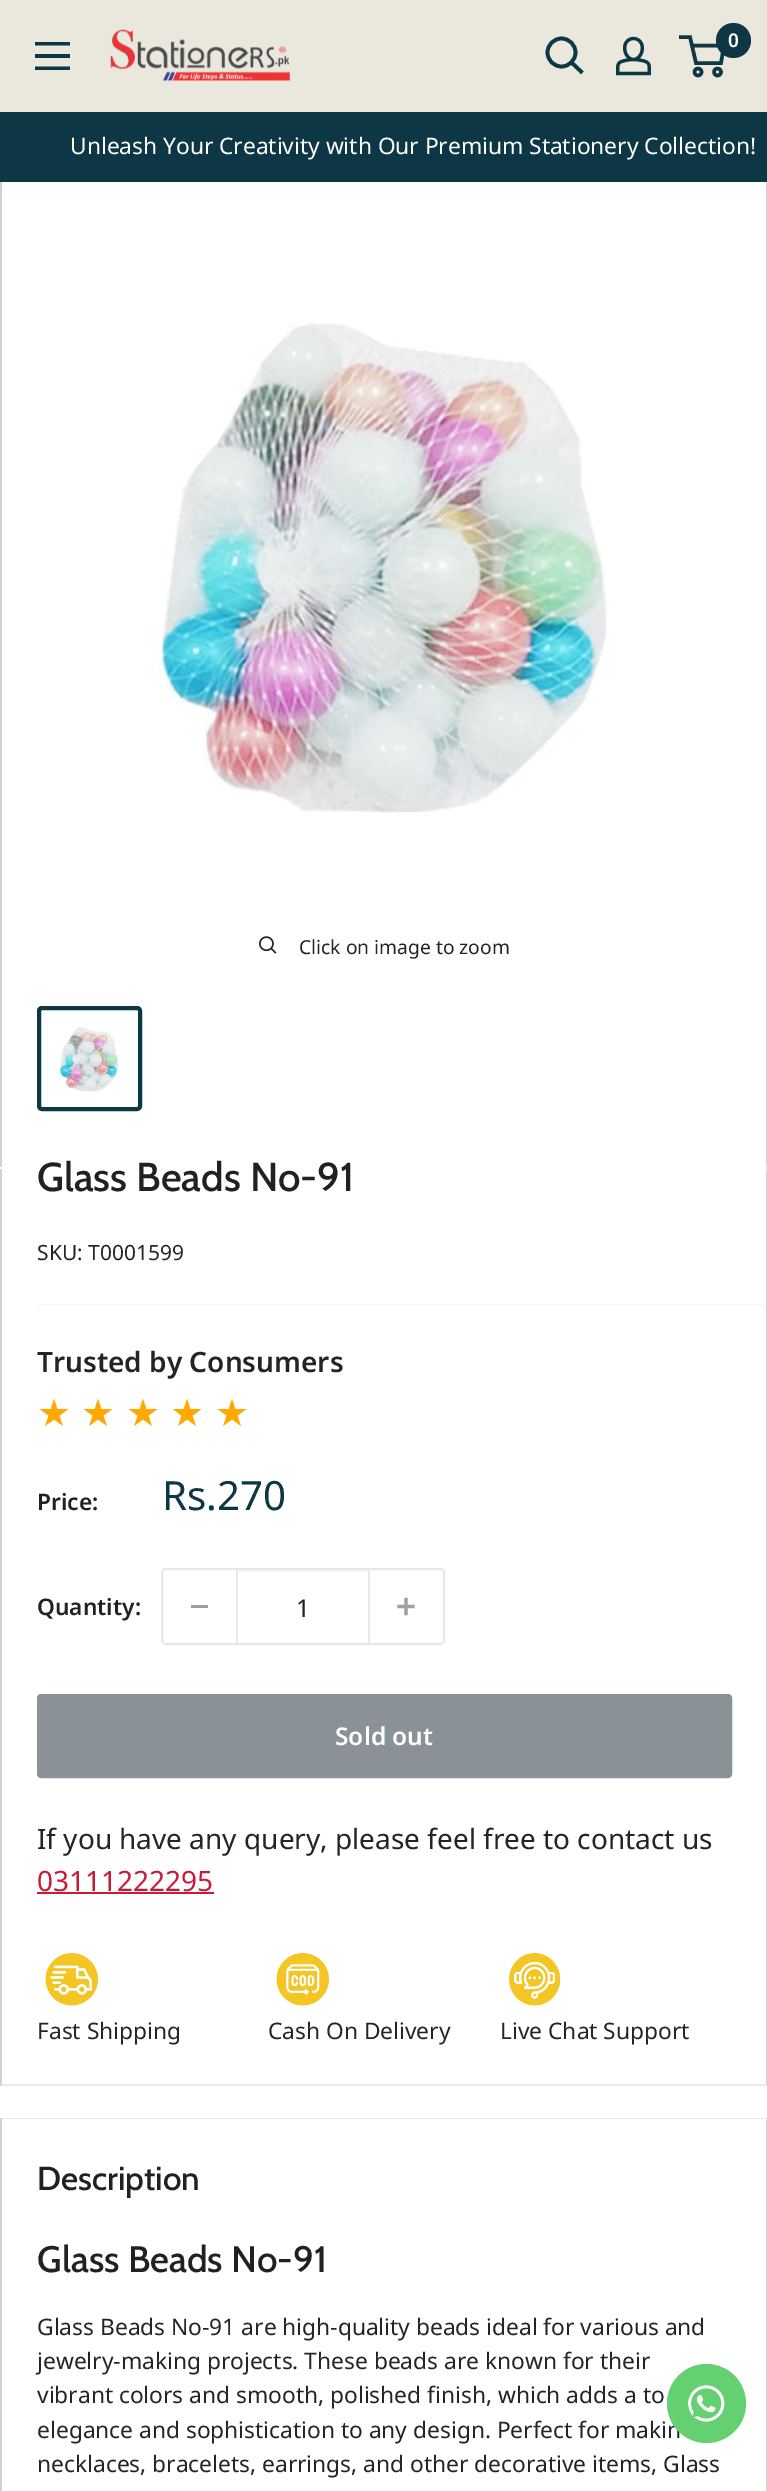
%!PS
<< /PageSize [767 2491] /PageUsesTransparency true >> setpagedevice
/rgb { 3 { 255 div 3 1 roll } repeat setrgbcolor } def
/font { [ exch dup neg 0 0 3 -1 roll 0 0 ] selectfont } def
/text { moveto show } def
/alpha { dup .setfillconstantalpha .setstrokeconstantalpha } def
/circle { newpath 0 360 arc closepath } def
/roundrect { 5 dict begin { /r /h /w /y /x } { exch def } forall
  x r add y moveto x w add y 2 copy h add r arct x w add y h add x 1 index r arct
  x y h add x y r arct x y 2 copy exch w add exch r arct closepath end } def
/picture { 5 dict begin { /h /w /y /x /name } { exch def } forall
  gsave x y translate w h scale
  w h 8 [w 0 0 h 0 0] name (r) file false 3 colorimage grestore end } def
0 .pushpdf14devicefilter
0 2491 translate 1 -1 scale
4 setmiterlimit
255 255 255 rgb
0 0 767 2491 rectfill
234 232 220 rgb
0 0 767 112 rectfill
(img_01.rgb) 110 29 180 53 picture
14 55 70 rgb
3.7 setlinewidth
2 setlinecap
581 71.5 moveto -9.5 -9 rlineto stroke
0 setlinecap
561.5 52.5 14 circle stroke
(img_02.rgb) 616 36 35 40 picture
3.5 setlinewidth
698 72 3.5 circle stroke
717.5 72 3.5 circle stroke
692 45.5 moveto 32 0 rlineto -3 17.5 rlineto -25 0 rlineto -6 -26 rlineto -11 0 rlineto stroke
733.5 40.5 17.5 circle fill
35 66.5 moveto 35 0 rlineto 0 3.5 rlineto -35 0 rlineto closepath 35 42 moveto 35 0 rlineto 0 3.5 rlineto -35 0 rlineto closepath 35 54 moveto 35 0 rlineto 0 4 rlineto -35 0 rlineto closepath eofill
0 112 767 70 rectfill
210 210 210 rgb
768 182 moveto 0 987 rlineto -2 -2 rlineto 0 -985 rlineto closepath fill
0.18 alpha
0 0 0 rgb
0 1169 moveto 0 -987 rlineto 2 0 rlineto 0 985 rlineto closepath fill
1 alpha
(img_03.rgb) 149 323 462 490 picture
(img_04.rgb) 259 936 18 18 picture
14 55 70 rgb
4 setlinewidth
39 1008 101 101 3 roundrect stroke
(img_05.rgb) 60 1027 59 65 picture
255 255 255 rgb
0 1167 767 2 rectfill
210 210 210 rgb
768 1169 moveto 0 917 rlineto -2 -2 rlineto 0 -915 rlineto closepath fill
232 232 232 rgb
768 2086 moveto -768 0 rlineto 2 -2 rlineto 764 0 rlineto closepath fill
0.18 alpha
0 0 0 rgb
0 2086 moveto 0 -917 rlineto 2 0 rlineto 0 915 rlineto closepath fill
0.25 alpha
232 232 232 rgb
37 1304 730 2 rectfill
1 alpha
2 setlinewidth
162 1569 282 75 4 roundrect stroke
160 160 160 rgb
191 1605 17 3 rectfill
246 246 246 rgb
238 1570 130 2 rectfill
232 232 232 rgb
368 1570 2 73 rectfill
236 1570 2 73 rectfill
(img_06.rgb) 397 1597 18 19 picture
138 146 151 rgb
38 1695 693 82 3 roundrect gsave fill grestore
stroke
203 24 54 rgb
37 1892 177 2 rectfill
(img_07.rgb) 45 1953 53 53 picture
(img_08.rgb) 276 1953 53 53 picture
(img_09.rgb) 509 1953 52 53 picture
232 232 232 rgb
0 2118 moveto 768 0 rlineto -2 1 rlineto -764 0 rlineto closepath fill
210 210 210 rgb
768 2118 moveto 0 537 rlineto -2 -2 rlineto 0 -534 rlineto closepath fill
0.18 alpha
0 0 0 rgb
0 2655 moveto 0 -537 rlineto 2 1 rlineto 0 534 rlineto closepath fill
/NotoSans-SemiBold 19 font
1 alpha
255 255 255 rgb
(0) 728 47 text
/NotoSans-Regular 22.75 font
(Unleash Your Creativity with Our Premium Stationery Collection!) 70 154 text
/NotoSans-Regular 19.25 font
33 37 41 rgb
(Click on image to zoom) 299 954 text
/Cabin-Medium 40.25 font
34 32 33 rgb
(Glass Beads No-91) 37 1191 text
/NotoSans-Regular 21 font
33 37 41 rgb
(SKU: T0001599) 37 1260 text
/NotoSans-SemiBold 28 font
(Trusted by Consumers) 37 1372 text
/DejaVuSans-Regular 38 font
255 168 0 rgb
(★) 37 1426 text
(★) 81 1426 text
(★) 126 1426 text
(★) 170 1426 text
(★) 215 1426 text
/NotoSans-SemiBold 22.75 font
34 32 33 rgb
(Price:) 37 1510 text
/NotoSans-Regular 40.25 font
14 55 70 rgb
(Rs.270) 162 1510 text
/NotoSans-SemiBold 22.75 font
34 32 33 rgb
(Quantity:) 37 1615 text
/NotoSans-Regular 24.5 font
(1) 296 1617 text
/NotoSans-SemiBold 24.5 font
255 255 255 rgb
(Sold out) 335 1745 text
/NotoSans-Regular 28 font
33 37 41 rgb
(If you have any query, please feel free to contact us) 37 1849 text
203 24 54 rgb
(03111222295) 37 1891 text
/NotoSans-Regular 22.75 font
33 37 41 rgb
(Fast Shipping) 37 2039 text
(Cash On Delivery) 268 2039 text
(Live Chat Support) 500 2039 text
/Cabin-Medium 33.25 font
34 32 33 rgb
(Description) 37 2190 text
/Cabin-Medium 36.75 font
(Glass Beads No-91) 37 2272 text
/NotoSans-Regular 22.75 font
33 37 41 rgb
(Glass Beads No-91 are high-quality beads ideal for various and) 37 2335 text
(jewelry-making projects. These beads are known for their) 37 2369 text
(vibrant colors and smooth, polished finish, which adds a to) 37 2403 text
(elegance and sophistication to any design. Perfect for makin) 37 2438 text
(necklaces, bracelets, earrings, and other decorative items, Glass) 37 2472 text
101 208 113 rgb
706.5 2403.5 39.5 circle fill
(img_10.rgb) 688 2385 37 37 picture
.poppdf14devicefilter showpage
